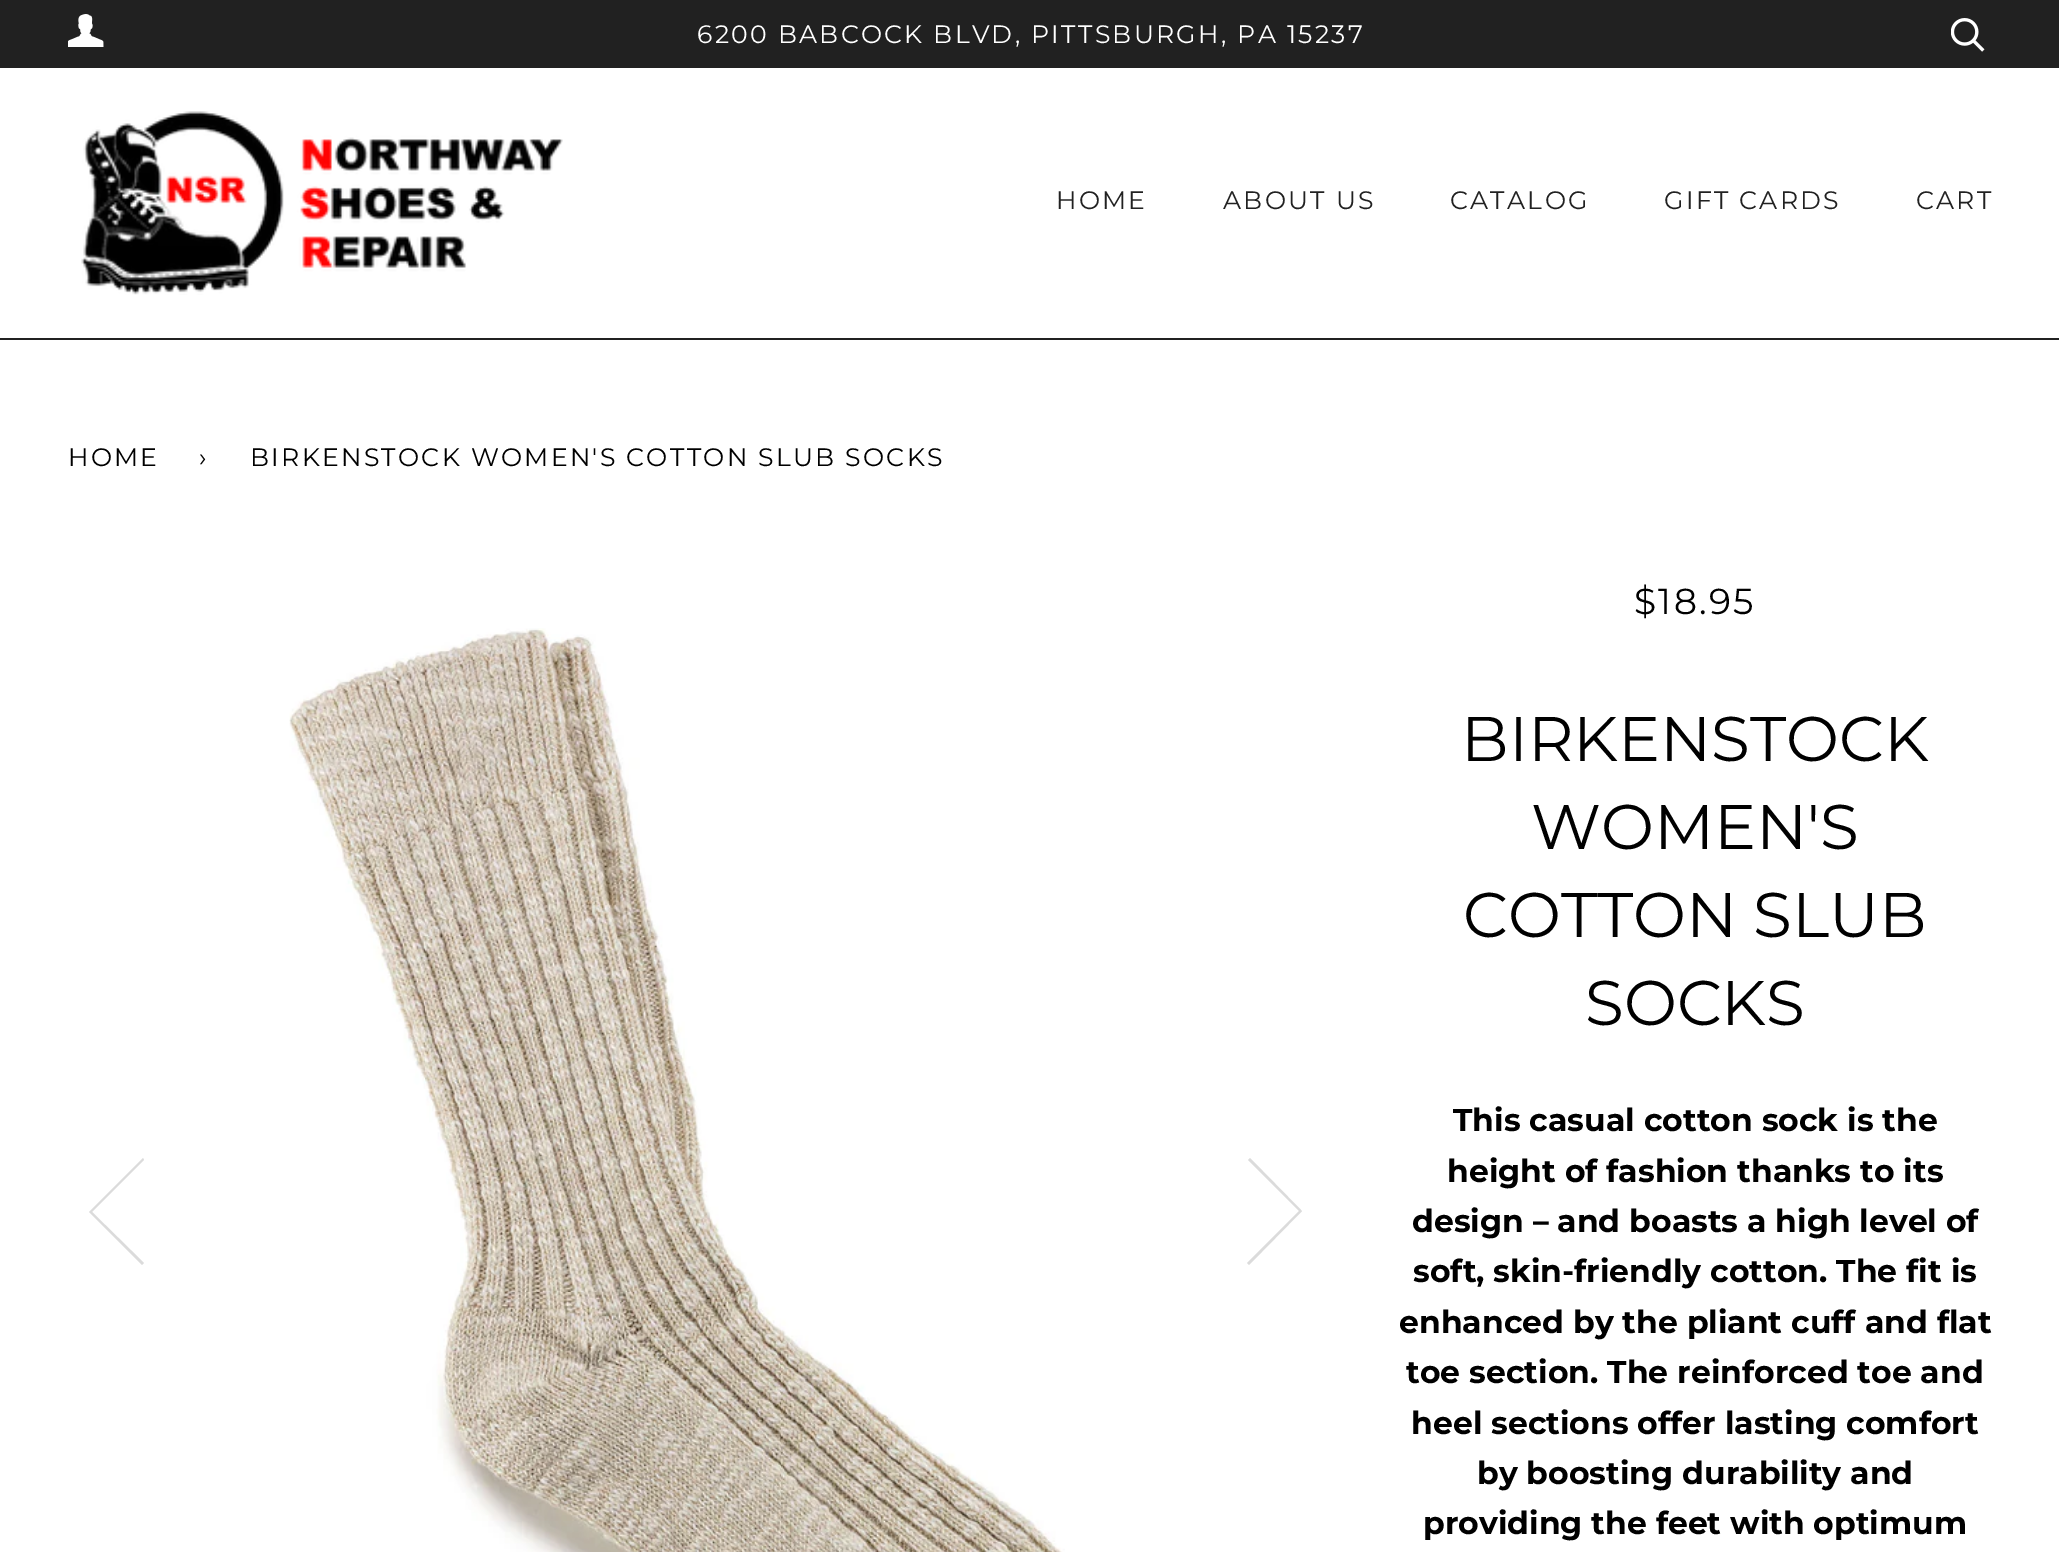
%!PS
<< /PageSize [2059 1552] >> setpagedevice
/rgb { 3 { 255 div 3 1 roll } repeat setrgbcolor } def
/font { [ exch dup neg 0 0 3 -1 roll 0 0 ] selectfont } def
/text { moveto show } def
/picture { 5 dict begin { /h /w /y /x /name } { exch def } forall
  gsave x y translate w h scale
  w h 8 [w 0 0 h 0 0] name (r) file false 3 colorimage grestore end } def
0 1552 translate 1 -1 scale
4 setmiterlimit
255 255 255 rgb
0 0 2059 1552 rectfill
33 33 33 rgb
0 0 2059 68 rectfill
(img_01.rgb) 68 14 36 33 picture
(img_02.rgb) 1951 18 34 34 picture
0 338 2059 2 rectfill
(img_03.rgb) 81 111 482 184 picture
219 219 219 rgb
90 1213 moveto 52 52 rlineto 2 -2 rlineto -52 -51 rlineto 52 -52 rlineto -1 -2 rlineto -54 54 rlineto closepath fill
(img_04.rgb) 289 628 776 924 picture
1301 1210 moveto -51 -52 rlineto -2 2 rlineto 51 51 rlineto -52 52 rlineto 2 2 rlineto 53 -54 rlineto closepath fill
/Montserrat-Regular 25.2 font
255 255 255 rgb
697 43 moveto 2.25 0 (6200 BABCOCK BLVD, PITTSBURGH, PA 15237) ashow
33 33 33 rgb
1056 209 moveto 2.25 0 (HOME) ashow
1223 209 moveto 2.25 0 (ABOUT US) ashow
1450 209 moveto 2.25 0 (CATALOG) ashow
1664 209 moveto 2.25 0 (GIFT CARDS) ashow
1916 209 moveto 2.25 0 (CART) ashow
0 0 0 rgb
68 466 moveto 2.25 0 (HOME) ashow
199 466 moveto 2.25 0 (›) ashow
250 466 moveto 2.25 0 (BIRKENSTOCK WOMEN'S COTTON SLUB SOCKS) ashow
/Montserrat-Regular 36 font
1634 614 moveto 2.25 0 ($18.95) ashow
/Montserrat-Regular 63 font
(BIRKENSTOCK) 1461 761 text
(WOMEN'S) 1531 849 text
(COTTON SLUB) 1463 937 text
(SOCKS) 1585 1025 text
/Montserrat-Bold 31.5 font
(This casual cotton sock is the) 1453 1131 text
(height of fashion thanks to its) 1447 1182 text
(design – and boasts a high level of) 1412 1232 text
(soft, skin-friendly cotton. The fit is) 1413 1282 text
(enhanced by the pliant cuff and flat) 1399 1333 text
(toe section. The reinforced toe and) 1406 1383 text
(heel sections offer lasting comfort) 1411 1434 text
(by boosting durability and) 1477 1484 text
(providing the feet with optimum) 1423 1534 text
showpage
